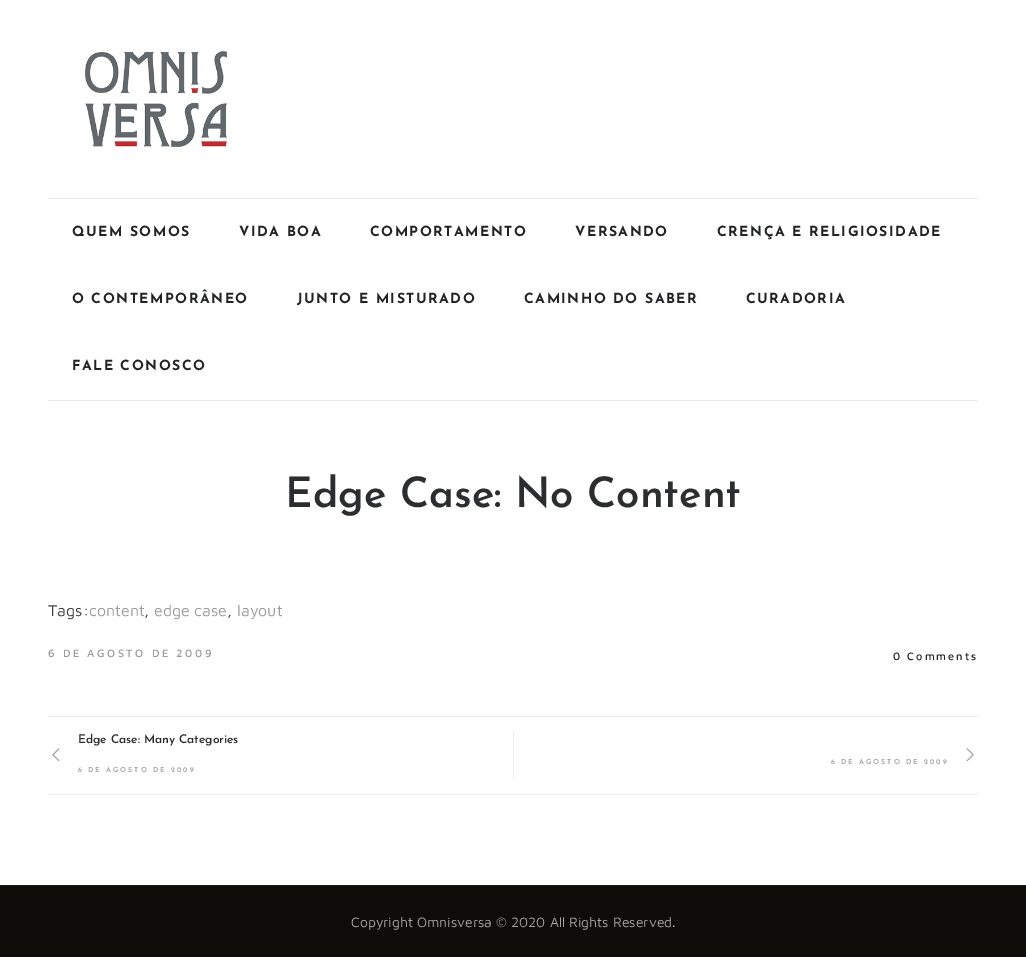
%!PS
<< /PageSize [1026 970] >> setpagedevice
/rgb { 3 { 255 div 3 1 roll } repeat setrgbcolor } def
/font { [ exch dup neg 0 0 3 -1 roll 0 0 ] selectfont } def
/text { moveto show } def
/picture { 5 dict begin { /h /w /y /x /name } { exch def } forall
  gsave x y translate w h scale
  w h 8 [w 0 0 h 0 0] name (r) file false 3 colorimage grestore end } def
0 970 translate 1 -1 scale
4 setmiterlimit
255 255 255 rgb
0 0 1026 970 rectfill
235 235 235 rgb
48 198 930 1 rectfill
(img_01.rgb) 85 51 142 96 picture
48 400 930 1 rectfill
237 237 238 rgb
48 716 930 1 rectfill
48 794 930 1 rectfill
(img_02.rgb) 52 748 8 14 picture
513 732 1 47 rectfill
(img_03.rgb) 966 748 8 14 picture
13 12 8 rgb
0 886 1026 71 rectfill
28 26 19 rgb
0 885 1026 1 rectfill
/JosefinSans-Bold 14 font
33 35 37 rgb
72 236 moveto 1.5 0 (QUEM SOMOS) ashow
239 236 moveto 1.5 0 (VIDA BOA) ashow
370 236 moveto 1.5 0 (COMPORTAMENTO) ashow
575 236 moveto 1.5 0 (VERSANDO) ashow
717 236 moveto 1.5 0 (CRENÇA E RELIGIOSIDADE) ashow
72 303 moveto 1.5 0 (O CONTEMPORÂNEO) ashow
297 303 moveto 1.5 0 (JUNTO E MISTURADO) ashow
524 303 moveto 1.5 0 (CAMINHO DO SABER) ashow
746 303 moveto 1.5 0 (CURADORIA) ashow
72 370 moveto 1.5 0 (FALE CONOSCO) ashow
/JosefinSans-SemiBold 42 font
43 45 46 rgb
(Edge Case: No Content) 285 507 text
/MavenPro-Regular 16 font
63 63 63 rgb
(Tags:) 48 616 text
153 155 157 rgb
(content) 89 616 text
63 63 63 rgb
(,) 144 616 text
153 155 157 rgb
(edge case) 154 616 text
63 63 63 rgb
(,) 227 616 text
153 155 157 rgb
(layout) 237 616 text
/MavenPro-Medium 11 font
48 657 moveto 2.5 0 (6 DE AGOSTO DE 2009) ashow
33 35 37 rgb
893 660 moveto 2 0 (0 Comments) ashow
/JosefinSans-SemiBold 12 font
43 45 46 rgb
(Edge Case: Many Categories) 78 743 text
/JosefinSans-SemiBold 7 font
153 155 157 rgb
78 772 moveto 2 0 (6 DE AGOSTO DE 2009) ashow
831 764 moveto 2 0 (6 DE AGOSTO DE 2009) ashow
/MavenPro-Regular 14 font
164 164 162 rgb
(Copyright Omnisversa © 2020 All Rights Reserved.) 351 927 text
showpage
